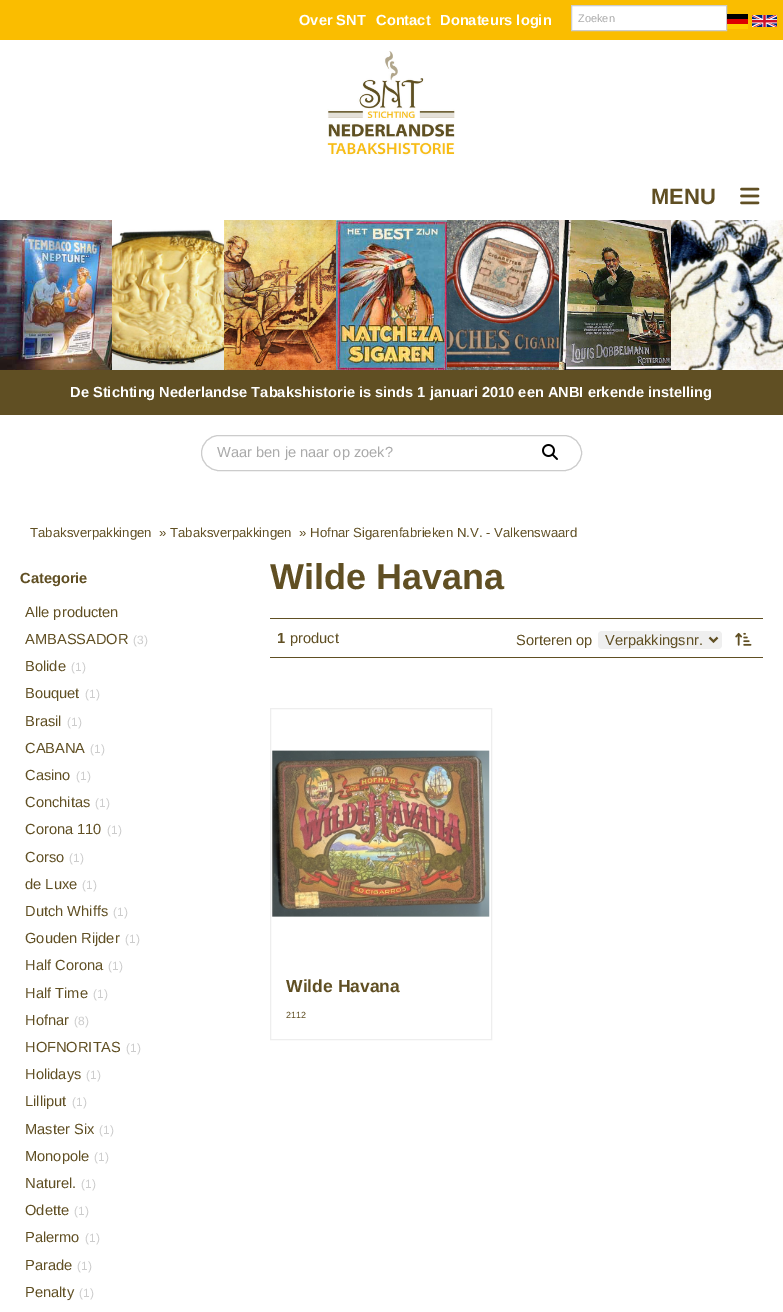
%!PS
<< /PageSize [783 1312] >> setpagedevice
/rgb { 3 { 255 div 3 1 roll } repeat setrgbcolor } def
/font { [ exch dup neg 0 0 3 -1 roll 0 0 ] selectfont } def
/text { moveto show } def
/roundrect { 5 dict begin { /r /h /w /y /x } { exch def } forall
  x r add y moveto x w add y 2 copy h add r arct x w add y h add x 1 index r arct
  x y h add x y r arct x y 2 copy exch w add exch r arct closepath end } def
/picture { 5 dict begin { /h /w /y /x /name } { exch def } forall
  gsave x y translate w h scale
  w h 8 [w 0 0 h 0 0] name (r) file false 3 colorimage grestore end } def
0 1312 translate 1 -1 scale
4 setmiterlimit
255 255 255 rgb
0 0 783 1312 rectfill
250 189 0 rgb
0 0 783 40 rectfill
255 206 0 rgb
723 24 25 5 rectfill
255 255 255 rgb
571.5 5.5 moveto 155 0 rlineto 0 25 rlineto -155 0 rlineto closepath gsave fill grestore
204 204 204 rgb
stroke
0 0 0 rgb
727 14 21 5 rectfill
221 0 0 rgb
727 19 21 5 rectfill
(img_01.rgb) 752 15 25 12 picture
(img_02.rgb) 327 51 128 105 picture
(img_03.rgb) 740 187 20 18 picture
(img_04.rgb) 0 220 112 150 picture
(img_05.rgb) 112 229 112 141 picture
(img_06.rgb) 224 220 112 150 picture
(img_07.rgb) 336 220 111 150 picture
(img_08.rgb) 447 220 112 150 picture
(img_09.rgb) 559 220 112 150 picture
(img_10.rgb) 671 220 112 150 picture
96 79 35 rgb
0 370 783 45 rectfill
204 204 204 rgb
201.5 435.5 380 35 17.5 roundrect stroke
(img_11.rgb) 542 444 16 16 picture
96 79 35 rgb
270 618 493 1 rectfill
270 657 493 1 rectfill
239 239 239 rgb
598 631 124 18 4 roundrect fill
96 79 35 rgb
2 setlinewidth
709.5 637.5 moveto 4 4 rlineto 4 -4 rlineto stroke
(img_12.rgb) 735 632 17 14 picture
238 238 238 rgb
1 setlinewidth
270.5 708.5 221 331 rectstroke
(img_13.rgb) 272 750 218 167 picture
/LiberationSans-Bold 14.65 font
255 255 255 rgb
(Over SNT) 299 25 text
(Contact) 376 25 text
(Donateurs login) 440 25 text
/LiberationSans-Regular 11 font
170 170 170 rgb
(Zoeken) 578 22 text
/LiberationSans-Bold 22 font
96 79 35 rgb
(MENU) 651 204 text
/LiberationSans-Bold 14.65 font
255 255 255 rgb
(De Stichting Nederlandse Tabakshistorie is sinds 1 januari 2010 een ANBI erkende instelling) 70 397 text
/LiberationSans-Regular 14.65 font
170 170 170 rgb
(Waar ben je naar op zoek?) 217 457 text
/LiberationSans-Regular 13.2 font
96 79 35 rgb
(Tabaksverpakkingen) 30 537 text
(» Tabaksverpakkingen) 159 537 text
(» Hofnar Sigarenfabrieken N.V. - Valkenswaard) 299 537 text
/LiberationSans-Bold 14.65 font
(Categorie) 20 583 text
/LiberationSans-Regular 14.65 font
(Alle producten) 25 617 text
(AMBASSADOR) 25 644 text
/LiberationSans-Regular 12 font
204 204 204 rgb
(\(3\)) 133 644 text
/LiberationSans-Regular 14.65 font
96 79 35 rgb
(Bolide) 25 671 text
/LiberationSans-Regular 12 font
204 204 204 rgb
(\(1\)) 71 671 text
/LiberationSans-Regular 14.65 font
96 79 35 rgb
(Bouquet) 25 698 text
/LiberationSans-Regular 12 font
204 204 204 rgb
(\(1\)) 85 698 text
/LiberationSans-Regular 14.65 font
96 79 35 rgb
(Brasil) 25 726 text
/LiberationSans-Regular 12 font
204 204 204 rgb
(\(1\)) 67 726 text
/LiberationSans-Regular 14.65 font
96 79 35 rgb
(CABANA) 25 753 text
/LiberationSans-Regular 12 font
204 204 204 rgb
(\(1\)) 90 753 text
/LiberationSans-Regular 14.65 font
96 79 35 rgb
(Casino) 25 780 text
/LiberationSans-Regular 12 font
204 204 204 rgb
(\(1\)) 76 780 text
/LiberationSans-Regular 14.65 font
96 79 35 rgb
(Conchitas) 25 807 text
/LiberationSans-Regular 12 font
204 204 204 rgb
(\(1\)) 95 807 text
/LiberationSans-Regular 14.65 font
96 79 35 rgb
(Corona 110) 25 834 text
/LiberationSans-Regular 12 font
204 204 204 rgb
(\(1\)) 107 834 text
/LiberationSans-Regular 14.65 font
96 79 35 rgb
(Corso) 25 862 text
/LiberationSans-Regular 12 font
204 204 204 rgb
(\(1\)) 69 862 text
/LiberationSans-Regular 14.65 font
96 79 35 rgb
(de Luxe) 25 889 text
/LiberationSans-Regular 12 font
204 204 204 rgb
(\(1\)) 82 889 text
/LiberationSans-Regular 14.65 font
96 79 35 rgb
(Dutch Whiffs) 25 916 text
/LiberationSans-Regular 12 font
204 204 204 rgb
(\(1\)) 113 916 text
/LiberationSans-Regular 14.65 font
96 79 35 rgb
(Gouden Rijder) 25 943 text
/LiberationSans-Regular 12 font
204 204 204 rgb
(\(1\)) 125 943 text
/LiberationSans-Regular 14.65 font
96 79 35 rgb
(Half Corona) 25 970 text
/LiberationSans-Regular 12 font
204 204 204 rgb
(\(1\)) 108 970 text
/LiberationSans-Regular 14.65 font
96 79 35 rgb
(Half Time) 25 998 text
/LiberationSans-Regular 12 font
204 204 204 rgb
(\(1\)) 93 998 text
/LiberationSans-Regular 14.65 font
96 79 35 rgb
(Hofnar) 25 1025 text
/LiberationSans-Regular 12 font
204 204 204 rgb
(\(8\)) 74 1025 text
/LiberationSans-Regular 14.65 font
96 79 35 rgb
(HOFNORITAS) 25 1052 text
/LiberationSans-Regular 12 font
204 204 204 rgb
(\(1\)) 126 1052 text
/LiberationSans-Regular 14.65 font
96 79 35 rgb
(Holidays) 25 1079 text
/LiberationSans-Regular 12 font
204 204 204 rgb
(\(1\)) 86 1079 text
/LiberationSans-Regular 14.65 font
96 79 35 rgb
(Lilliput) 25 1106 text
/LiberationSans-Regular 12 font
204 204 204 rgb
(\(1\)) 72 1106 text
/LiberationSans-Regular 14.65 font
96 79 35 rgb
(Master Six) 25 1134 text
/LiberationSans-Regular 12 font
204 204 204 rgb
(\(1\)) 99 1134 text
/LiberationSans-Regular 14.65 font
96 79 35 rgb
(Monopole) 25 1161 text
/LiberationSans-Regular 12 font
204 204 204 rgb
(\(1\)) 94 1161 text
/LiberationSans-Regular 14.65 font
96 79 35 rgb
(Naturel.) 25 1188 text
/LiberationSans-Regular 12 font
204 204 204 rgb
(\(1\)) 81 1188 text
/LiberationSans-Regular 14.65 font
96 79 35 rgb
(Odette) 25 1215 text
/LiberationSans-Regular 12 font
204 204 204 rgb
(\(1\)) 74 1215 text
/LiberationSans-Regular 14.65 font
96 79 35 rgb
(Palermo) 25 1242 text
/LiberationSans-Regular 12 font
204 204 204 rgb
(\(1\)) 85 1242 text
/LiberationSans-Regular 14.65 font
96 79 35 rgb
(Parade) 25 1270 text
/LiberationSans-Regular 12 font
204 204 204 rgb
(\(1\)) 77 1270 text
/LiberationSans-Regular 14.65 font
96 79 35 rgb
(Penalty) 25 1297 text
/LiberationSans-Regular 12 font
204 204 204 rgb
(\(1\)) 79 1297 text
/LiberationSans-Bold 36 font
96 79 35 rgb
(Wilde Havana) 270 589 text
/LiberationSans-Bold 14.65 font
(1) 277 643 text
/LiberationSans-Regular 14.65 font
(product) 290 643 text
(Sorteren op) 516 645 text
(Verpakkingsnr.) 605 645 text
/LiberationSans-Bold 17.5 font
(Wilde Havana) 286 992 text
/LiberationSans-Regular 9 font
(2112) 286 1018 text
showpage
